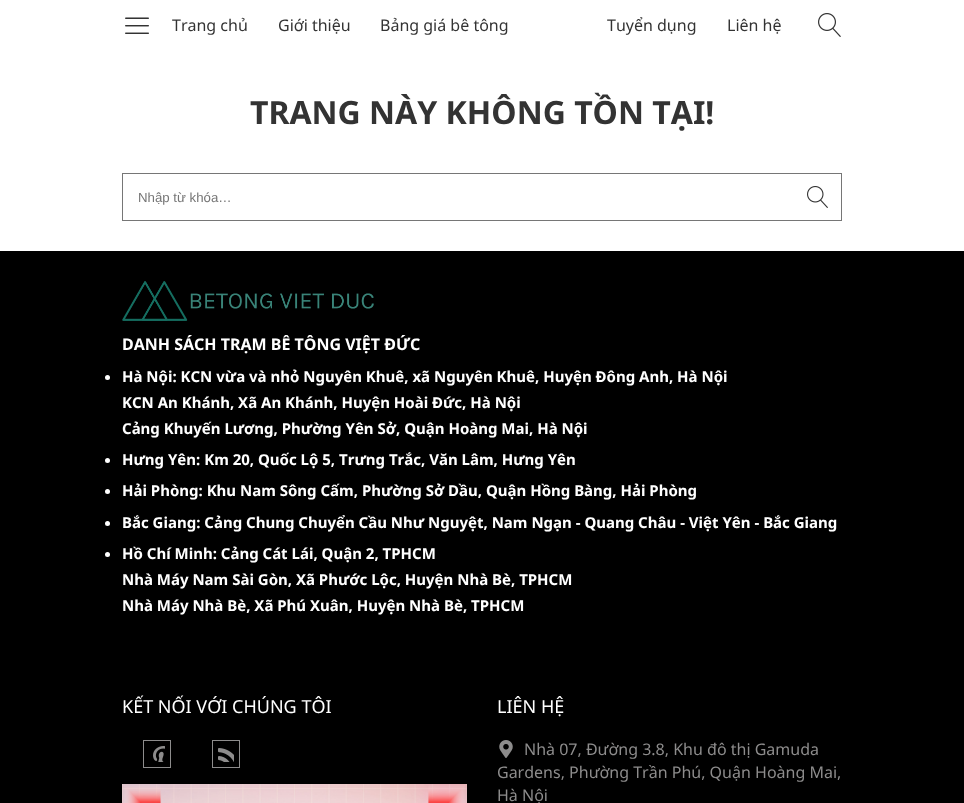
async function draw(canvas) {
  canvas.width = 964
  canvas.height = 803
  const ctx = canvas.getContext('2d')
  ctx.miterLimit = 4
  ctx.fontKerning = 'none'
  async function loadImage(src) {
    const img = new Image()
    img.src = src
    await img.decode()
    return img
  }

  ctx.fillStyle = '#fff'
  ctx.fillRect(0, 0, 964, 803)
  ctx.drawImage(await loadImage('image0.png'), 125, 17, 24, 17)
  ctx.font = '16px Noto Sans'
  ctx.fillStyle = '#333'
  ctx.fillText('Trang chủ', 172, 31)
  ctx.fillText('Giới thiệu', 278, 31)
  ctx.fillText('Bảng giá bê tông', 380, 31)
  ctx.fillText('Tuyển dụng', 607, 31)
  ctx.fillText('Liên hệ', 727, 31)
  ctx.drawImage(await loadImage('image1.png'), 818, 13, 23, 24)
  ctx.font = 'bold 32px Noto Sans'
  ctx.fillText('TRANG NÀY KHÔNG TỒN TẠI!', 250, 124)
  ctx.strokeStyle = '#767676'
  ctx.strokeRect(122.5, 173.5, 719, 47)
  ctx.font = '13.25px Liberation Sans'
  ctx.fillStyle = '#757575'
  ctx.fillText('Nhập từ khóa…', 138, 202)
  ctx.drawImage(await loadImage('image2.png'), 807, 186, 21, 22)
  ctx.fillStyle = '#000'
  ctx.fillRect(0, 251, 964, 552)
  ctx.drawImage(await loadImage('image3.png'), 122, 281, 252, 40)
  ctx.font = 'bold 16px Noto Sans'
  ctx.fillStyle = '#fff'
  ctx.fillText('DANH SÁCH TRẠM BÊ TÔNG VIỆT ĐỨC', 122, 350)
  ctx.beginPath()
  ctx.arc(107.5, 377.5, 2.5, 0, 2 * Math.PI)
  ctx.fill()
  ctx.font = 'bold 15px Noto Sans'
  ctx.fillText('Hà Nội: KCN vừa và nhỏ Nguyên Khuê, xã Nguyên Khuê, Huyện Đông Anh, Hà Nội', 122, 382)
  ctx.fillText('KCN An Khánh, Xã An Khánh, Huyện Hoài Đức, Hà Nội', 122, 408)
  ctx.fillText('Cảng Khuyến Lương, Phường Yên Sở, Quận Hoàng Mai, Hà Nội', 122, 434)
  ctx.beginPath()
  ctx.arc(107.5, 460.5, 2.5, 0, 2 * Math.PI)
  ctx.fill()
  ctx.fillText('Hưng Yên: Km 20, Quốc Lộ 5, Trưng Trắc, Văn Lâm, Hưng Yên', 122, 465)
  ctx.beginPath()
  ctx.arc(107.5, 491.5, 2.5, 0, 2 * Math.PI)
  ctx.fill()
  ctx.fillText('Hải Phòng: Khu Nam Sông Cấm, Phường Sở Dầu, Quận Hồng Bàng, Hải Phòng', 122, 496)
  ctx.beginPath()
  ctx.arc(107.5, 523.5, 2.5, 0, 2 * Math.PI)
  ctx.fill()
  ctx.fillText('Bắc Giang: Cảng Chung Chuyển Cầu Như Nguyệt, Nam Ngạn - Quang Châu - Việt Yên - Bắc Giang', 122, 528)
  ctx.beginPath()
  ctx.arc(107.5, 554.5, 2.5, 0, 2 * Math.PI)
  ctx.fill()
  ctx.fillText('Hồ Chí Minh: Cảng Cát Lái, Quận 2, TPHCM', 122, 559)
  ctx.fillText('Nhà Máy Nam Sài Gòn, Xã Phước Lộc, Huyện Nhà Bè, TPHCM', 122, 585)
  ctx.fillText('Nhà Máy Nhà Bè, Xã Phú Xuân, Huyện Nhà Bè, TPHCM', 122, 611)
  ctx.font = '18px Noto Sans'
  ctx.fillText('KẾT NỐI VỚI CHÚNG TÔI', 122, 713)
  ctx.strokeStyle = '#8d8c8c'
  ctx.strokeRect(143.5, 740.5, 27, 27)
  ctx.drawImage(await loadImage('image4.png'), 153, 746, 12, 16)
  ctx.strokeRect(212.5, 740.5, 27, 27)
  ctx.drawImage(await loadImage('image5.png'), 218, 748, 16, 14)
  ctx.drawImage(await loadImage('image6.png'), 122, 784, 345, 19)
  ctx.fillText('LIÊN HỆ', 497, 713)
  ctx.drawImage(await loadImage('image7.png'), 499, 740, 14, 18)
  ctx.font = '16px Noto Sans'
  ctx.fillStyle = '#8d8c8c'
  ctx.fillText('Nhà 07, Đường 3.8, Khu đô thị Gamuda', 524, 755)
  ctx.fillText('Gardens, Phường Trần Phú, Quận Hoàng Mai,', 497, 778)
  ctx.fillText('Hà Nội', 497, 801)
}

draw(document.querySelector('canvas'))
